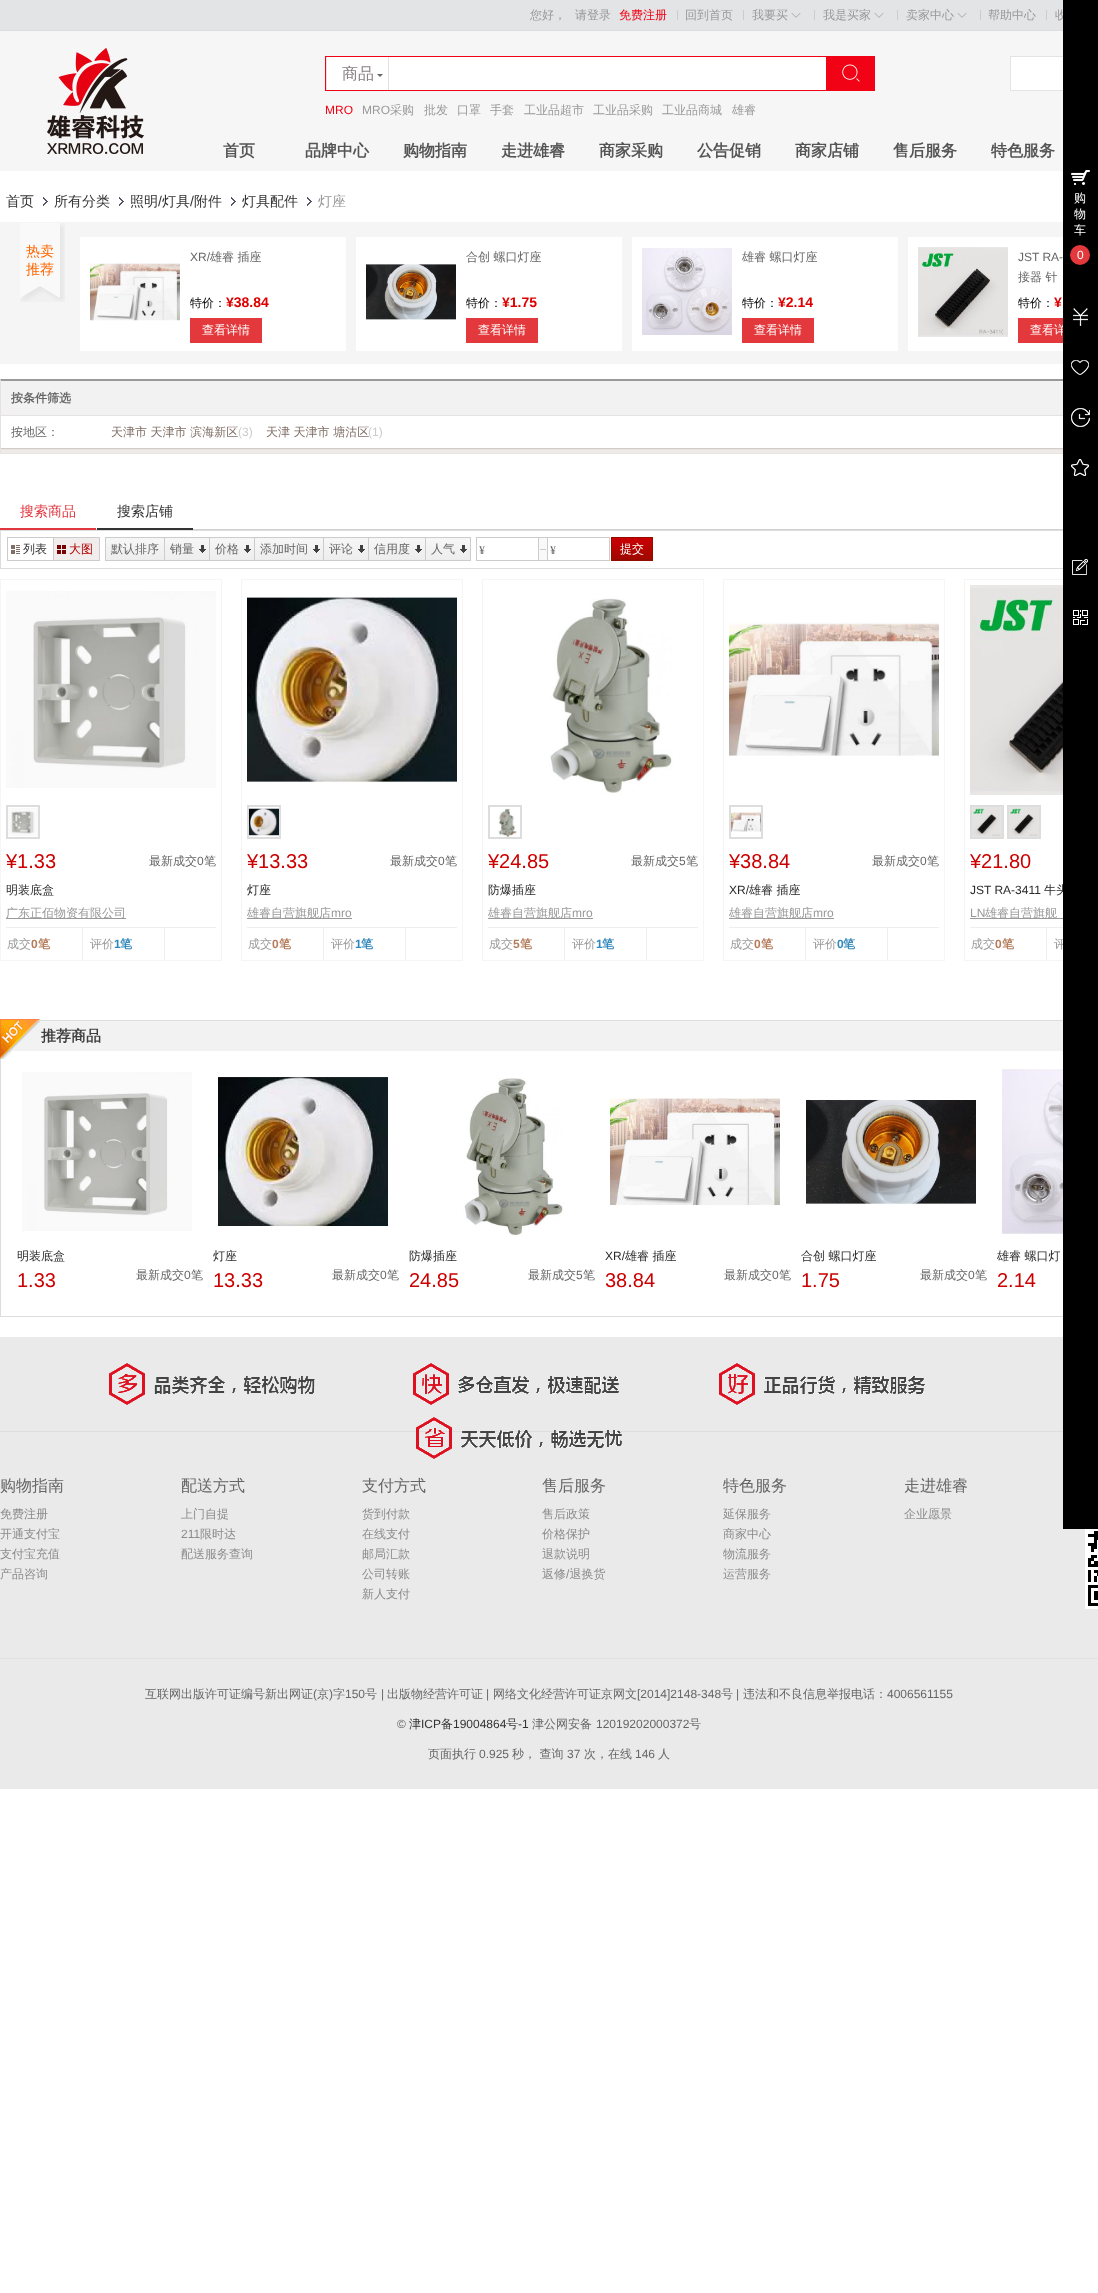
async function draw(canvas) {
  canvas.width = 1098
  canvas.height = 2293
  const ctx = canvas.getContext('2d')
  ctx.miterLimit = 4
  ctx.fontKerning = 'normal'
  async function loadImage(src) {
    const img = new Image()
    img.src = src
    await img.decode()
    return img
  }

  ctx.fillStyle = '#fff'
  ctx.fillRect(0, 0, 1098, 2293)
  ctx.fillStyle = '#e3e4e5'
  ctx.fillRect(0, 0, 1063, 30)
  ctx.fillStyle = '#ddd'
  ctx.fillRect(0, 30, 1063, 1)
  ctx.font = '500 12px WenQuanYi Zen Hei'
  ctx.fillStyle = '#999'
  ctx.fillText('您好，', 530, 19)
  ctx.fillText('请登录', 575, 19)
  ctx.fillStyle = '#f10215'
  ctx.fillText('免费注册', 619, 19)
  ctx.fillStyle = '#ccc'
  ctx.fillRect(677, 10, 1, 10)
  ctx.fillStyle = '#999'
  ctx.fillText('回到首页', 685, 19)
  ctx.fillStyle = '#ccc'
  ctx.fillRect(743, 10, 1, 10)
  ctx.fillStyle = '#999'
  ctx.fillText('我要买', 752, 19)
  ctx.beginPath()
  ctx.moveTo(791, 13)
  ctx.lineTo(801, 13)
  ctx.lineTo(796, 18)
  ctx.closePath()
  ctx.fill()
  ctx.fillStyle = '#e3e4e5'
  ctx.beginPath()
  ctx.moveTo(801, 13)
  ctx.lineTo(801, 23)
  ctx.lineTo(796, 18)
  ctx.closePath()
  ctx.moveTo(791, 23)
  ctx.lineTo(791, 13)
  ctx.lineTo(796, 18)
  ctx.closePath()
  ctx.fill()
  ctx.beginPath()
  ctx.moveTo(791, 12)
  ctx.lineTo(801, 12)
  ctx.lineTo(796, 17)
  ctx.closePath()
  ctx.fill()
  ctx.fillStyle = '#ccc'
  ctx.fillRect(814, 10, 1, 10)
  ctx.fillStyle = '#999'
  ctx.fillText('我是买家', 823, 19)
  ctx.beginPath()
  ctx.moveTo(874, 13)
  ctx.lineTo(884, 13)
  ctx.lineTo(879, 18)
  ctx.closePath()
  ctx.fill()
  ctx.fillStyle = '#e3e4e5'
  ctx.beginPath()
  ctx.moveTo(884, 13)
  ctx.lineTo(884, 23)
  ctx.lineTo(879, 18)
  ctx.closePath()
  ctx.moveTo(874, 23)
  ctx.lineTo(874, 13)
  ctx.lineTo(879, 18)
  ctx.closePath()
  ctx.fill()
  ctx.beginPath()
  ctx.moveTo(874, 12)
  ctx.lineTo(884, 12)
  ctx.lineTo(879, 17)
  ctx.closePath()
  ctx.fill()
  ctx.fillStyle = '#ccc'
  ctx.fillRect(897, 10, 1, 10)
  ctx.fillStyle = '#999'
  ctx.fillText('卖家中心', 906, 19)
  ctx.beginPath()
  ctx.moveTo(957, 13)
  ctx.lineTo(967, 13)
  ctx.lineTo(962, 18)
  ctx.closePath()
  ctx.fill()
  ctx.fillStyle = '#e3e4e5'
  ctx.beginPath()
  ctx.moveTo(967, 13)
  ctx.lineTo(967, 23)
  ctx.lineTo(962, 18)
  ctx.closePath()
  ctx.moveTo(957, 23)
  ctx.lineTo(957, 13)
  ctx.lineTo(962, 18)
  ctx.closePath()
  ctx.fill()
  ctx.beginPath()
  ctx.moveTo(957, 12)
  ctx.lineTo(967, 12)
  ctx.lineTo(962, 17)
  ctx.closePath()
  ctx.fill()
  ctx.fillStyle = '#ccc'
  ctx.fillRect(980, 10, 1, 10)
  ctx.fillStyle = '#999'
  ctx.fillText('帮助中心', 988, 19)
  ctx.fillStyle = '#ccc'
  ctx.fillRect(1046, 10, 1, 10)
  ctx.fillStyle = '#999'
  ctx.fillText('收', 1055, 19)
  ctx.fillStyle = '#f6f6f6'
  ctx.fillRect(190, 31, 873, 140)
  ctx.drawImage(await loadImage('image0.png'), 0, 31, 190, 140)
  ctx.strokeStyle = '#f10215'
  ctx.strokeRect(325.5, 56.5, 549, 34)
  ctx.fillStyle = '#fff'
  ctx.fillRect(327, 57, 499, 33)
  ctx.fillStyle = '#f10215'
  ctx.fillRect(826, 57, 48, 33)
  ctx.drawImage(await loadImage('image1.png'), 842, 64, 18, 18)
  ctx.fillStyle = '#e2e2e2'
  ctx.fillRect(388, 57, 1, 33)
  ctx.fillRect(326, 57, 1, 33)
  ctx.font = '500 16px WenQuanYi Zen Hei'
  ctx.fillStyle = '#898181'
  ctx.fillText('商品', 342, 79)
  ctx.fillStyle = '#666'
  ctx.beginPath()
  ctx.moveTo(377, 74)
  ctx.lineTo(383, 74)
  ctx.lineTo(380, 77)
  ctx.closePath()
  ctx.fill()
  ctx.font = '12px Liberation Sans'
  ctx.fillStyle = '#f10215'
  ctx.fillText('MRO', 325, 114)
  ctx.fillStyle = '#999'
  ctx.fillText('MRO', 362, 114)
  ctx.font = '500 12px WenQuanYi Zen Hei'
  ctx.fillText('采购', 390, 114)
  ctx.fillText('批发', 424, 114)
  ctx.fillText('口罩', 457, 114)
  ctx.fillText('手套', 490, 114)
  ctx.fillText('工业品超市', 524, 114)
  ctx.fillText('工业品采购', 593, 114)
  ctx.fillText('工业品商城', 662, 114)
  ctx.fillText('雄睿', 732, 114)
  ctx.fillStyle = '#fff'
  ctx.fillRect(1011, 57, 52, 33)
  ctx.strokeStyle = '#e3e4e5'
  ctx.strokeRect(1010.5, 56.5, 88, 34)
  ctx.font = 'bold 16px WenQuanYi Zen Hei'
  ctx.fillStyle = '#555'
  ctx.fillText('首页', 223, 156)
  ctx.fillText('品牌中心', 305, 156)
  ctx.fillText('购物指南', 403, 156)
  ctx.fillText('走进雄睿', 501, 156)
  ctx.fillText('商家采购', 599, 156)
  ctx.fillText('公告促销', 697, 156)
  ctx.fillText('商家店铺', 795, 156)
  ctx.fillText('售后服务', 893, 156)
  ctx.fillText('特色服务', 991, 156)
  ctx.fillStyle = '#eaeaea'
  ctx.fillRect(0, 1337, 1098, 452)
  ctx.fillStyle = '#f5f5f5'
  ctx.fillRect(0, 222, 1063, 142)
  ctx.fillStyle = '#fff'
  ctx.fillRect(908, 237, 155, 114)
  ctx.fillStyle = '#e4393c'
  ctx.fillRect(1018, 318, 45, 25)
  ctx.font = '500 12px WenQuanYi Zen Hei'
  ctx.fillStyle = '#fff'
  ctx.fillText('查看详', 1030, 334)
  ctx.fillStyle = '#999'
  ctx.beginPath()
  ctx.moveTo(0, 379)
  ctx.lineTo(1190, 379)
  ctx.lineTo(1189, 381)
  ctx.lineTo(1, 381)
  ctx.closePath()
  ctx.fill()
  ctx.fillStyle = '#efebea'
  ctx.fillRect(0, 450, 1063, 3)
  ctx.strokeStyle = '#ebe4de'
  ctx.strokeRect(0.5, 449.5, 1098, 4)
  ctx.strokeStyle = '#ddd'
  ctx.strokeRect(0.5, 530.5, 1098, 38)
  ctx.strokeStyle = '#f5f5f5'
  ctx.strokeRect(964.5, 579.5, 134, 381)
  ctx.fillStyle = '#2a2a2a'
  ctx.fillText('牛头', 1044, 894)
  ctx.fillStyle = '#999'
  ctx.fillRect(970, 918, 99, 1)
  ctx.fillText('评', 1054, 948)
  ctx.strokeStyle = '#ddd'
  ctx.strokeRect(0.5, 1020.5, 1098, 296)
  ctx.fillStyle = '#000'
  ctx.fillRect(1063, 0, 35, 1529)
  ctx.drawImage(await loadImage('image2.png'), 1071, 170, 19, 15)
  ctx.fillStyle = '#fff'
  ctx.fillText('购', 1074, 202)
  ctx.fillText('物', 1074, 218)
  ctx.fillText('车', 1074, 234)
  ctx.fillStyle = '#e4393c'
  ctx.beginPath()
  ctx.arc(1080, 255, 10, 0, 2 * Math.PI)
  ctx.fill()
  ctx.font = '12px Liberation Sans'
  ctx.fillStyle = '#fff'
  ctx.fillText('0', 1077, 259)
  ctx.drawImage(await loadImage('image3.png'), 1073, 308, 15, 18)
  ctx.drawImage(await loadImage('image4.png'), 1071, 360, 18, 15)
  ctx.drawImage(await loadImage('image5.png'), 1071, 408, 19, 19)
  ctx.drawImage(await loadImage('image6.png'), 1071, 459, 18, 17)
  ctx.drawImage(await loadImage('image7.png'), 1072, 559, 16, 16)
  ctx.drawImage(await loadImage('image8.png'), 1073, 610, 15, 15)
  ctx.fillStyle = '#dedede'
  ctx.fillRect(0, 1431, 1063, 1)
  ctx.drawImage(await loadImage('image9.png'), 109, 1363, 206, 42)
  ctx.drawImage(await loadImage('image10.png'), 413, 1363, 206, 42)
  ctx.drawImage(await loadImage('image11.png'), 719, 1363, 206, 42)
  ctx.drawImage(await loadImage('image12.png'), 416, 1417, 206, 42)
  ctx.font = '500 16px WenQuanYi Zen Hei'
  ctx.fillStyle = '#666'
  ctx.fillText('购物指南', 0, 1491)
  ctx.font = '500 12px WenQuanYi Zen Hei'
  ctx.fillStyle = '#8b8b8b'
  ctx.fillText('免费注册', 0, 1518)
  ctx.fillText('开通支付宝', 0, 1538)
  ctx.fillText('支付宝充值', 0, 1558)
  ctx.fillText('产品咨询', 0, 1578)
  ctx.font = '500 16px WenQuanYi Zen Hei'
  ctx.fillStyle = '#666'
  ctx.fillText('配送方式', 181, 1491)
  ctx.font = '500 12px WenQuanYi Zen Hei'
  ctx.fillStyle = '#8b8b8b'
  ctx.fillText('上门自提', 181, 1518)
  ctx.font = '12px Liberation Sans'
  ctx.fillText('211', 181, 1538)
  ctx.font = '500 12px WenQuanYi Zen Hei'
  ctx.fillText('限时达', 200, 1538)
  ctx.fillText('配送服务查询', 181, 1558)
  ctx.font = '500 16px WenQuanYi Zen Hei'
  ctx.fillStyle = '#666'
  ctx.fillText('支付方式', 362, 1491)
  ctx.font = '500 12px WenQuanYi Zen Hei'
  ctx.fillStyle = '#8b8b8b'
  ctx.fillText('货到付款', 362, 1518)
  ctx.fillText('在线支付', 362, 1538)
  ctx.fillText('邮局汇款', 362, 1558)
  ctx.fillText('公司转账', 362, 1578)
  ctx.fillText('新人支付', 362, 1598)
  ctx.font = '500 16px WenQuanYi Zen Hei'
  ctx.fillStyle = '#666'
  ctx.fillText('售后服务', 542, 1491)
  ctx.font = '500 12px WenQuanYi Zen Hei'
  ctx.fillStyle = '#8b8b8b'
  ctx.fillText('售后政策', 542, 1518)
  ctx.fillText('价格保护', 542, 1538)
  ctx.fillText('退款说明', 542, 1558)
  ctx.fillText('返修 退换货', 542, 1578)
  ctx.font = '12px Liberation Sans'
  ctx.fillText('/', 566, 1578)
  ctx.font = '500 16px WenQuanYi Zen Hei'
  ctx.fillStyle = '#666'
  ctx.fillText('特色服务', 723, 1491)
  ctx.font = '500 12px WenQuanYi Zen Hei'
  ctx.fillStyle = '#8b8b8b'
  ctx.fillText('延保服务', 723, 1518)
  ctx.fillText('商家中心', 723, 1538)
  ctx.fillText('物流服务', 723, 1558)
  ctx.fillText('运营服务', 723, 1578)
  ctx.font = '500 16px WenQuanYi Zen Hei'
  ctx.fillStyle = '#666'
  ctx.fillText('走进雄睿', 904, 1491)
  ctx.font = '500 12px WenQuanYi Zen Hei'
  ctx.fillStyle = '#8b8b8b'
  ctx.fillText('企业愿景', 904, 1518)
  ctx.drawImage(await loadImage('image13.png'), 1085, 1529, 13, 80)
  ctx.fillStyle = '#e1e1e1'
  ctx.fillRect(0, 1658, 1098, 1)
  ctx.fillStyle = '#666'
  ctx.fillText('互联网出版许可证编号新出网证', 145, 1698)
  ctx.font = '12px Liberation Sans'
  ctx.fillText('(', 313, 1698)
  ctx.font = '500 12px WenQuanYi Zen Hei'
  ctx.fillText('京', 317, 1698)
  ctx.font = '12px Liberation Sans'
  ctx.fillText(')', 329, 1698)
  ctx.font = '500 12px WenQuanYi Zen Hei'
  ctx.fillText('字', 333, 1698)
  ctx.font = '12px Liberation Sans'
  ctx.fillText('150', 345, 1698)
  ctx.font = '500 12px WenQuanYi Zen Hei'
  ctx.fillText('号', 365, 1698)
  ctx.font = '12px Liberation Sans'
  ctx.fillText('|', 381, 1698)
  ctx.font = '500 12px WenQuanYi Zen Hei'
  ctx.fillText('出版物经营许可证', 387, 1698)
  ctx.font = '12px Liberation Sans'
  ctx.fillText('|', 486, 1698)
  ctx.font = '500 12px WenQuanYi Zen Hei'
  ctx.fillText('网络文化经营许可证京网文', 493, 1698)
  ctx.font = '12px Liberation Sans'
  ctx.fillText('[2014]2148-348', 637, 1698)
  ctx.font = '500 12px WenQuanYi Zen Hei'
  ctx.fillText('号', 721, 1698)
  ctx.font = '12px Liberation Sans'
  ctx.fillText('|', 736, 1698)
  ctx.font = '500 12px WenQuanYi Zen Hei'
  ctx.fillText('违法和不良信息举报电话：', 743, 1698)
  ctx.font = '12px Liberation Sans'
  ctx.fillText('4006561155', 887, 1698)
  ctx.fillText('©', 397, 1728)
  ctx.font = '500 12px WenQuanYi Zen Hei'
  ctx.fillStyle = '#333'
  ctx.fillText('津', 409, 1728)
  ctx.font = '12px Liberation Sans'
  ctx.fillText('ICP', 421, 1728)
  ctx.font = '500 12px WenQuanYi Zen Hei'
  ctx.fillText('备', 441, 1728)
  ctx.font = '12px Liberation Sans'
  ctx.fillText('19004864', 453, 1728)
  ctx.font = '500 12px WenQuanYi Zen Hei'
  ctx.fillText('号', 506, 1728)
  ctx.font = '12px Liberation Sans'
  ctx.fillText('-1', 518, 1728)
  ctx.font = '500 12px WenQuanYi Zen Hei'
  ctx.fillStyle = '#666'
  ctx.fillText('津公网安备', 532, 1728)
  ctx.font = '12px Liberation Sans'
  ctx.fillText('12019202000372', 596, 1728)
  ctx.font = '500 12px WenQuanYi Zen Hei'
  ctx.fillText('号', 689, 1728)
  ctx.fillText('页面执行', 428, 1758)
  ctx.font = '12px Liberation Sans'
  ctx.fillText('0.925', 479, 1758)
  ctx.font = '500 12px WenQuanYi Zen Hei'
  ctx.fillText('秒， 查询', 512, 1758)
  ctx.font = '12px Liberation Sans'
  ctx.fillText('37', 567, 1758)
  ctx.font = '500 12px WenQuanYi Zen Hei'
  ctx.fillText('次，在线', 584, 1758)
  ctx.font = '12px Liberation Sans'
  ctx.fillText('146', 635, 1758)
  ctx.font = '500 12px WenQuanYi Zen Hei'
  ctx.fillText('人', 658, 1758)
  ctx.font = '500 14px WenQuanYi Zen Hei'
  ctx.fillStyle = '#333'
  ctx.fillText('首页', 6, 206)
  ctx.drawImage(await loadImage('image14.png'), 43, 197, 5, 9)
  ctx.fillText('所有分类', 54, 206)
  ctx.drawImage(await loadImage('image14.png'), 119, 197, 5, 9)
  ctx.fillText('照明', 130, 206)
  ctx.font = '14px Liberation Sans'
  ctx.fillText('/', 158, 206)
  ctx.font = '500 14px WenQuanYi Zen Hei'
  ctx.fillText('灯具', 162, 206)
  ctx.font = '14px Liberation Sans'
  ctx.fillText('/', 190, 206)
  ctx.font = '500 14px WenQuanYi Zen Hei'
  ctx.fillText('附件', 194, 206)
  ctx.drawImage(await loadImage('image14.png'), 231, 197, 5, 9)
  ctx.fillText('灯具配件', 242, 206)
  ctx.drawImage(await loadImage('image14.png'), 307, 197, 5, 9)
  ctx.fillStyle = '#999'
  ctx.fillText('灯座', 318, 206)
  ctx.drawImage(await loadImage('image15.png'), 20, 223, 45, 79)
  ctx.fillStyle = '#f60'
  ctx.fillText('热卖', 26, 256)
  ctx.fillText('推荐', 26, 274)
  ctx.fillStyle = '#fff'
  ctx.fillRect(80, 237, 266, 114)
  ctx.drawImage(await loadImage('image16.png'), 90, 263, 90, 58)
  ctx.font = '12px Liberation Sans'
  ctx.fillStyle = '#666'
  ctx.fillText('XR/', 190, 261)
  ctx.font = '500 12px WenQuanYi Zen Hei'
  ctx.fillText('雄睿 插座', 210, 261)
  ctx.fillStyle = '#000'
  ctx.fillText('特价：', 190, 307)
  ctx.font = 'bold 14px Liberation Sans'
  ctx.fillStyle = '#d00'
  ctx.fillText('¥38.84', 226, 307)
  ctx.fillStyle = '#e4393c'
  ctx.fillRect(190, 318, 72, 25)
  ctx.font = '500 12px WenQuanYi Zen Hei'
  ctx.fillStyle = '#fff'
  ctx.fillText('查看详情', 202, 334)
  ctx.fillRect(356, 237, 266, 114)
  ctx.drawImage(await loadImage('image17.png'), 366, 264, 90, 56)
  ctx.fillStyle = '#666'
  ctx.fillText('合创 螺口灯座', 466, 261)
  ctx.fillStyle = '#000'
  ctx.fillText('特价：', 466, 307)
  ctx.font = 'bold 14px Liberation Sans'
  ctx.fillStyle = '#d00'
  ctx.fillText('¥1.75', 502, 307)
  ctx.fillStyle = '#e4393c'
  ctx.fillRect(466, 318, 72, 25)
  ctx.font = '500 12px WenQuanYi Zen Hei'
  ctx.fillStyle = '#fff'
  ctx.fillText('查看详情', 478, 334)
  ctx.fillRect(632, 237, 266, 114)
  ctx.drawImage(await loadImage('image18.png'), 642, 248, 90, 87)
  ctx.fillStyle = '#666'
  ctx.fillText('雄睿 螺口灯座', 742, 261)
  ctx.fillStyle = '#000'
  ctx.fillText('特价：', 742, 307)
  ctx.font = 'bold 14px Liberation Sans'
  ctx.fillStyle = '#d00'
  ctx.fillText('¥2.14', 778, 307)
  ctx.fillStyle = '#e4393c'
  ctx.fillRect(742, 318, 72, 25)
  ctx.font = '500 12px WenQuanYi Zen Hei'
  ctx.fillStyle = '#fff'
  ctx.fillText('查看详情', 754, 334)
  ctx.drawImage(await loadImage('image19.png'), 918, 247, 90, 90)
  ctx.font = '12px Liberation Sans'
  ctx.fillStyle = '#666'
  ctx.fillText('JST RA-', 1018, 261)
  ctx.font = '500 12px WenQuanYi Zen Hei'
  ctx.fillText('接器 针', 1018, 281)
  ctx.fillStyle = '#000'
  ctx.fillText('特价：', 1018, 307)
  ctx.font = 'bold 14px Liberation Sans'
  ctx.fillStyle = '#d00'
  ctx.fillText('¥', 1054, 307)
  ctx.fillStyle = '#f2f2f2'
  ctx.fillRect(1, 381, 1062, 34)
  ctx.fillStyle = '#e6e2e1'
  ctx.fillRect(0, 415, 1063, 1)
  ctx.beginPath()
  ctx.moveTo(0, 416)
  ctx.lineTo(0, 379)
  ctx.lineTo(1, 381)
  ctx.lineTo(1, 415)
  ctx.closePath()
  ctx.fill()
  ctx.font = 'bold 12px WenQuanYi Zen Hei'
  ctx.fillStyle = '#666'
  ctx.fillText('按条件筛选', 11, 402)
  ctx.fillStyle = '#d1ccc7'
  ctx.fillRect(0, 448, 1063, 1)
  ctx.fillStyle = '#e6e2e1'
  ctx.fillRect(0, 416, 1, 33)
  ctx.font = '500 12px WenQuanYi Zen Hei'
  ctx.fillStyle = '#666'
  ctx.fillText('按地区：', 11, 436)
  ctx.fillStyle = '#806f66'
  ctx.fillText('天津市 天津市 滨海新区', 111, 436)
  ctx.font = '12px Liberation Sans'
  ctx.fillStyle = '#ccc'
  ctx.fillText('(3)', 238, 436)
  ctx.font = '500 12px WenQuanYi Zen Hei'
  ctx.fillStyle = '#806f66'
  ctx.fillText('天津 天津市 塘沽区', 266, 436)
  ctx.font = '12px Liberation Sans'
  ctx.fillStyle = '#ccc'
  ctx.fillText('(1)', 368, 436)
  ctx.fillStyle = '#d2d2d2'
  ctx.fillRect(96, 529, 967, 1)
  ctx.fillStyle = '#e1363f'
  ctx.fillRect(0, 528, 96, 2)
  ctx.font = '500 14px WenQuanYi Zen Hei'
  ctx.fillText('搜索商品', 20, 516)
  ctx.fillStyle = '#333'
  ctx.fillRect(97, 528, 96, 2)
  ctx.fillText('搜索店铺', 117, 516)
  ctx.strokeStyle = '#ccc'
  ctx.strokeRect(7.5, 537.5, 46, 23)
  ctx.drawImage(await loadImage('image20.png'), 11, 545, 9, 9)
  ctx.font = '500 12px WenQuanYi Zen Hei'
  ctx.fillText('列表', 23, 553)
  ctx.fillStyle = '#f1edec'
  ctx.fillRect(54, 538, 45, 22)
  ctx.fillStyle = '#ccc'
  ctx.fillRect(54, 537, 46, 1)
  ctx.fillRect(99, 537, 1, 24)
  ctx.fillRect(54, 560, 46, 1)
  ctx.drawImage(await loadImage('image21.png'), 57, 545, 9, 9)
  ctx.fillStyle = '#b10000'
  ctx.fillText('大图', 69, 553)
  ctx.drawImage(await loadImage('image22.png'), 106, 538, 58, 22)
  ctx.strokeRect(105.5, 537.5, 59, 23)
  ctx.fillStyle = '#666'
  ctx.fillText('默认排序', 111, 553)
  ctx.drawImage(await loadImage('image23.png'), 165, 538, 44, 22)
  ctx.fillStyle = '#ccc'
  ctx.fillRect(165, 537, 306, 1)
  ctx.fillRect(209, 537, 1, 24)
  ctx.fillRect(165, 560, 45, 1)
  ctx.fillStyle = '#666'
  ctx.fillText('销量', 170, 553)
  ctx.drawImage(await loadImage('image24.png'), 199, 545, 7, 8)
  ctx.drawImage(await loadImage('image23.png'), 210, 538, 44, 22)
  ctx.fillStyle = '#ccc'
  ctx.fillRect(254, 537, 1, 24)
  ctx.fillRect(210, 560, 45, 1)
  ctx.fillStyle = '#666'
  ctx.fillText('价格', 215, 553)
  ctx.drawImage(await loadImage('image24.png'), 244, 545, 7, 8)
  ctx.drawImage(await loadImage('image25.png'), 255, 538, 68, 22)
  ctx.fillStyle = '#ccc'
  ctx.fillRect(323, 537, 1, 24)
  ctx.fillRect(255, 560, 69, 1)
  ctx.fillStyle = '#666'
  ctx.fillText('添加时间', 260, 553)
  ctx.drawImage(await loadImage('image24.png'), 313, 545, 7, 8)
  ctx.drawImage(await loadImage('image23.png'), 324, 538, 44, 22)
  ctx.fillStyle = '#ccc'
  ctx.fillRect(368, 537, 1, 24)
  ctx.fillRect(324, 560, 45, 1)
  ctx.fillStyle = '#666'
  ctx.fillText('评论', 329, 553)
  ctx.drawImage(await loadImage('image24.png'), 358, 545, 7, 8)
  ctx.drawImage(await loadImage('image26.png'), 369, 538, 56, 22)
  ctx.fillStyle = '#ccc'
  ctx.fillRect(425, 537, 1, 24)
  ctx.fillRect(369, 560, 57, 1)
  ctx.fillStyle = '#666'
  ctx.fillText('信用度', 374, 553)
  ctx.drawImage(await loadImage('image24.png'), 415, 545, 7, 8)
  ctx.drawImage(await loadImage('image23.png'), 426, 538, 44, 22)
  ctx.fillStyle = '#ccc'
  ctx.fillRect(470, 537, 1, 24)
  ctx.fillRect(426, 560, 45, 1)
  ctx.fillStyle = '#666'
  ctx.fillText('人气', 431, 553)
  ctx.drawImage(await loadImage('image24.png'), 460, 545, 7, 8)
  ctx.strokeRect(476.5, 537.5, 62, 23)
  ctx.font = '12px Liberation Serif'
  ctx.fillText('¥', 479, 554)
  ctx.drawImage(await loadImage('image27.png'), 539, 537, 8, 24)
  ctx.strokeRect(547.5, 537.5, 62, 23)
  ctx.fillText('¥', 550, 554)
  ctx.drawImage(await loadImage('image28.png'), 612, 537, 40, 24)
  ctx.fillStyle = '#950b00'
  ctx.fillRect(652, 537, 1, 24)
  ctx.fillRect(611, 537, 1, 24)
  ctx.font = '500 12px WenQuanYi Zen Hei'
  ctx.fillStyle = '#fff'
  ctx.fillText('提交', 620, 553)
  ctx.strokeStyle = '#f5f5f5'
  ctx.strokeRect(0.5, 579.5, 221, 381)
  ctx.drawImage(await loadImage('image29.png'), 6, 591, 210, 197)
  ctx.drawImage(await loadImage('image30.png'), 8, 808, 30, 28)
  ctx.strokeStyle = '#ddd'
  ctx.lineWidth = 2
  ctx.strokeRect(7, 806, 32, 32)
  ctx.font = '20px Liberation Sans'
  ctx.fillStyle = '#c00'
  ctx.fillText('¥1.33', 6, 868)
  ctx.font = '500 12px WenQuanYi Zen Hei'
  ctx.fillStyle = '#666'
  ctx.fillText('最新成交', 149, 865)
  ctx.font = '12px Liberation Sans'
  ctx.fillText('0', 197, 865)
  ctx.font = '500 12px WenQuanYi Zen Hei'
  ctx.fillText('笔', 204, 865)
  ctx.fillStyle = '#2a2a2a'
  ctx.fillText('明装底盒', 6, 894)
  ctx.fillStyle = '#999'
  ctx.fillRect(6, 918, 120, 1)
  ctx.fillText('广东正佰物资有限公司', 6, 917)
  ctx.fillStyle = '#eee'
  ctx.fillRect(6, 927, 210, 1)
  ctx.fillRect(82, 928, 1, 32)
  ctx.fillStyle = '#999'
  ctx.fillText('成交', 7, 948)
  ctx.font = 'bold 12px Liberation Sans'
  ctx.fillStyle = '#b57c5b'
  ctx.fillText('0', 31, 948)
  ctx.font = 'bold 12px WenQuanYi Zen Hei'
  ctx.fillText('笔', 38, 948)
  ctx.fillStyle = '#eee'
  ctx.fillRect(164, 928, 1, 32)
  ctx.font = '500 12px WenQuanYi Zen Hei'
  ctx.fillStyle = '#999'
  ctx.fillText('评价', 90, 948)
  ctx.font = 'bold 12px Liberation Sans'
  ctx.fillStyle = '#38b'
  ctx.fillText('1', 114, 948)
  ctx.font = 'bold 12px WenQuanYi Zen Hei'
  ctx.fillText('笔', 120, 948)
  ctx.strokeStyle = '#f5f5f5'
  ctx.lineWidth = 1
  ctx.strokeRect(241.5, 579.5, 221, 381)
  ctx.drawImage(await loadImage('image31.png'), 247, 597, 210, 186)
  ctx.drawImage(await loadImage('image32.png'), 249, 808, 30, 28)
  ctx.strokeStyle = '#ddd'
  ctx.lineWidth = 2
  ctx.strokeRect(248, 806, 32, 32)
  ctx.font = '20px Liberation Sans'
  ctx.fillStyle = '#c00'
  ctx.fillText('¥13.33', 247, 868)
  ctx.font = '500 12px WenQuanYi Zen Hei'
  ctx.fillStyle = '#666'
  ctx.fillText('最新成交', 390, 865)
  ctx.font = '12px Liberation Sans'
  ctx.fillText('0', 438, 865)
  ctx.font = '500 12px WenQuanYi Zen Hei'
  ctx.fillText('笔', 445, 865)
  ctx.fillStyle = '#2a2a2a'
  ctx.fillText('灯座', 247, 894)
  ctx.fillStyle = '#999'
  ctx.fillRect(247, 918, 105, 1)
  ctx.fillText('雄睿自营旗舰店', 247, 917)
  ctx.font = '12px Liberation Sans'
  ctx.fillText('mro', 331, 917)
  ctx.fillStyle = '#eee'
  ctx.fillRect(247, 927, 210, 1)
  ctx.fillRect(323, 928, 1, 32)
  ctx.font = '500 12px WenQuanYi Zen Hei'
  ctx.fillStyle = '#999'
  ctx.fillText('成交', 248, 948)
  ctx.font = 'bold 12px Liberation Sans'
  ctx.fillStyle = '#b57c5b'
  ctx.fillText('0', 272, 948)
  ctx.font = 'bold 12px WenQuanYi Zen Hei'
  ctx.fillText('笔', 279, 948)
  ctx.fillStyle = '#eee'
  ctx.fillRect(405, 928, 1, 32)
  ctx.font = '500 12px WenQuanYi Zen Hei'
  ctx.fillStyle = '#999'
  ctx.fillText('评价', 331, 948)
  ctx.font = 'bold 12px Liberation Sans'
  ctx.fillStyle = '#38b'
  ctx.fillText('1', 355, 948)
  ctx.font = 'bold 12px WenQuanYi Zen Hei'
  ctx.fillText('笔', 361, 948)
  ctx.strokeStyle = '#f5f5f5'
  ctx.lineWidth = 1
  ctx.strokeRect(482.5, 579.5, 221, 381)
  ctx.drawImage(await loadImage('image33.png'), 549, 598, 124, 196)
  ctx.drawImage(await loadImage('image34.png'), 498, 808, 19, 29)
  ctx.strokeStyle = '#ddd'
  ctx.lineWidth = 2
  ctx.strokeRect(489, 806, 32, 32)
  ctx.font = '20px Liberation Sans'
  ctx.fillStyle = '#c00'
  ctx.fillText('¥24.85', 488, 868)
  ctx.font = '500 12px WenQuanYi Zen Hei'
  ctx.fillStyle = '#666'
  ctx.fillText('最新成交', 631, 865)
  ctx.font = '12px Liberation Sans'
  ctx.fillText('5', 679, 865)
  ctx.font = '500 12px WenQuanYi Zen Hei'
  ctx.fillText('笔', 686, 865)
  ctx.fillStyle = '#2a2a2a'
  ctx.fillText('防爆插座', 488, 894)
  ctx.fillStyle = '#999'
  ctx.fillRect(488, 918, 105, 1)
  ctx.fillText('雄睿自营旗舰店', 488, 917)
  ctx.font = '12px Liberation Sans'
  ctx.fillText('mro', 572, 917)
  ctx.fillStyle = '#eee'
  ctx.fillRect(488, 927, 210, 1)
  ctx.fillRect(564, 928, 1, 32)
  ctx.font = '500 12px WenQuanYi Zen Hei'
  ctx.fillStyle = '#999'
  ctx.fillText('成交', 489, 948)
  ctx.font = 'bold 12px Liberation Sans'
  ctx.fillStyle = '#b57c5b'
  ctx.fillText('5', 513, 948)
  ctx.font = 'bold 12px WenQuanYi Zen Hei'
  ctx.fillText('笔', 520, 948)
  ctx.fillStyle = '#eee'
  ctx.fillRect(646, 928, 1, 32)
  ctx.font = '500 12px WenQuanYi Zen Hei'
  ctx.fillStyle = '#999'
  ctx.fillText('评价', 572, 948)
  ctx.font = 'bold 12px Liberation Sans'
  ctx.fillStyle = '#38b'
  ctx.fillText('1', 596, 948)
  ctx.font = 'bold 12px WenQuanYi Zen Hei'
  ctx.fillText('笔', 602, 948)
  ctx.strokeStyle = '#f5f5f5'
  ctx.lineWidth = 1
  ctx.strokeRect(723.5, 579.5, 221, 381)
  ctx.drawImage(await loadImage('image35.png'), 729, 622, 210, 134)
  ctx.drawImage(await loadImage('image36.png'), 731, 812, 30, 20)
  ctx.strokeStyle = '#ddd'
  ctx.lineWidth = 2
  ctx.strokeRect(730, 806, 32, 32)
  ctx.font = '20px Liberation Sans'
  ctx.fillStyle = '#c00'
  ctx.fillText('¥38.84', 729, 868)
  ctx.font = '500 12px WenQuanYi Zen Hei'
  ctx.fillStyle = '#666'
  ctx.fillText('最新成交', 872, 865)
  ctx.font = '12px Liberation Sans'
  ctx.fillText('0', 920, 865)
  ctx.font = '500 12px WenQuanYi Zen Hei'
  ctx.fillText('笔', 927, 865)
  ctx.font = '12px Liberation Sans'
  ctx.fillStyle = '#2a2a2a'
  ctx.fillText('XR/', 729, 894)
  ctx.font = '500 12px WenQuanYi Zen Hei'
  ctx.fillText('雄睿 插座', 749, 894)
  ctx.fillStyle = '#999'
  ctx.fillRect(729, 918, 105, 1)
  ctx.fillText('雄睿自营旗舰店', 729, 917)
  ctx.font = '12px Liberation Sans'
  ctx.fillText('mro', 813, 917)
  ctx.fillStyle = '#eee'
  ctx.fillRect(729, 927, 210, 1)
  ctx.fillRect(805, 928, 1, 32)
  ctx.font = '500 12px WenQuanYi Zen Hei'
  ctx.fillStyle = '#999'
  ctx.fillText('成交', 730, 948)
  ctx.font = 'bold 12px Liberation Sans'
  ctx.fillStyle = '#b57c5b'
  ctx.fillText('0', 754, 948)
  ctx.font = 'bold 12px WenQuanYi Zen Hei'
  ctx.fillText('笔', 761, 948)
  ctx.fillStyle = '#eee'
  ctx.fillRect(887, 928, 1, 32)
  ctx.font = '500 12px WenQuanYi Zen Hei'
  ctx.fillStyle = '#999'
  ctx.fillText('评价', 813, 948)
  ctx.font = 'bold 12px Liberation Sans'
  ctx.fillStyle = '#38b'
  ctx.fillText('0', 837, 948)
  ctx.font = 'bold 12px WenQuanYi Zen Hei'
  ctx.fillText('笔', 843, 948)
  ctx.drawImage(await loadImage('image37.png'), 970, 585, 93, 210)
  ctx.drawImage(await loadImage('image38.png'), 972, 807, 30, 30)
  ctx.strokeRect(971, 806, 32, 32)
  ctx.drawImage(await loadImage('image38.png'), 1009, 807, 30, 30)
  ctx.strokeRect(1008, 806, 32, 32)
  ctx.font = '20px Liberation Sans'
  ctx.fillStyle = '#c00'
  ctx.fillText('¥21.80', 970, 868)
  ctx.font = '12px Liberation Sans'
  ctx.fillStyle = '#2a2a2a'
  ctx.fillText('JST RA-3411', 970, 894)
  ctx.fillStyle = '#999'
  ctx.fillText('LN', 970, 917)
  ctx.font = '500 12px WenQuanYi Zen Hei'
  ctx.fillText('雄睿自营旗舰', 985, 917)
  ctx.fillStyle = '#eee'
  ctx.fillRect(970, 927, 93, 1)
  ctx.fillRect(1046, 928, 1, 32)
  ctx.fillStyle = '#999'
  ctx.fillText('成交', 971, 948)
  ctx.font = 'bold 12px Liberation Sans'
  ctx.fillStyle = '#b57c5b'
  ctx.fillText('0', 995, 948)
  ctx.font = 'bold 12px WenQuanYi Zen Hei'
  ctx.fillText('笔', 1002, 948)
  ctx.fillStyle = '#f2f2f2'
  ctx.fillRect(13, 1021, 1050, 30)
  ctx.drawImage(await loadImage('image39.png'), 0, 1019, 40, 40)
  ctx.font = 'bold 15px WenQuanYi Zen Hei'
  ctx.fillStyle = '#3e3e3e'
  ctx.fillText('推荐商品', 41, 1041)
  ctx.drawImage(await loadImage('image40.png'), 22, 1072, 170, 159)
  ctx.font = '500 12px WenQuanYi Zen Hei'
  ctx.fillStyle = '#2a2a2a'
  ctx.fillText('明装底盒', 17, 1260)
  ctx.font = '20px Liberation Sans'
  ctx.fillStyle = '#c00'
  ctx.fillText('1.33', 17, 1287)
  ctx.font = '500 12px WenQuanYi Zen Hei'
  ctx.fillStyle = '#666'
  ctx.fillText('最新成交', 136, 1279)
  ctx.font = '12px Liberation Sans'
  ctx.fillText('0', 184, 1279)
  ctx.font = '500 12px WenQuanYi Zen Hei'
  ctx.fillText('笔', 191, 1279)
  ctx.drawImage(await loadImage('image41.png'), 218, 1077, 170, 150)
  ctx.fillStyle = '#2a2a2a'
  ctx.fillText('灯座', 213, 1260)
  ctx.font = '20px Liberation Sans'
  ctx.fillStyle = '#c00'
  ctx.fillText('13.33', 213, 1287)
  ctx.font = '500 12px WenQuanYi Zen Hei'
  ctx.fillStyle = '#666'
  ctx.fillText('最新成交', 332, 1279)
  ctx.font = '12px Liberation Sans'
  ctx.fillText('0', 380, 1279)
  ctx.font = '500 12px WenQuanYi Zen Hei'
  ctx.fillText('笔', 387, 1279)
  ctx.drawImage(await loadImage('image42.png'), 463, 1078, 101, 158)
  ctx.fillStyle = '#2a2a2a'
  ctx.fillText('防爆插座', 409, 1260)
  ctx.font = '20px Liberation Sans'
  ctx.fillStyle = '#c00'
  ctx.fillText('24.85', 409, 1287)
  ctx.font = '500 12px WenQuanYi Zen Hei'
  ctx.fillStyle = '#666'
  ctx.fillText('最新成交', 528, 1279)
  ctx.font = '12px Liberation Sans'
  ctx.fillText('5', 576, 1279)
  ctx.font = '500 12px WenQuanYi Zen Hei'
  ctx.fillText('笔', 583, 1279)
  ctx.drawImage(await loadImage('image43.png'), 610, 1098, 170, 108)
  ctx.font = '12px Liberation Sans'
  ctx.fillStyle = '#2a2a2a'
  ctx.fillText('XR/', 605, 1260)
  ctx.font = '500 12px WenQuanYi Zen Hei'
  ctx.fillText('雄睿 插座', 625, 1260)
  ctx.font = '20px Liberation Sans'
  ctx.fillStyle = '#c00'
  ctx.fillText('38.84', 605, 1287)
  ctx.font = '500 12px WenQuanYi Zen Hei'
  ctx.fillStyle = '#666'
  ctx.fillText('最新成交', 724, 1279)
  ctx.font = '12px Liberation Sans'
  ctx.fillText('0', 772, 1279)
  ctx.font = '500 12px WenQuanYi Zen Hei'
  ctx.fillText('笔', 779, 1279)
  ctx.drawImage(await loadImage('image44.png'), 806, 1099, 170, 106)
  ctx.fillStyle = '#2a2a2a'
  ctx.fillText('合创 螺口灯座', 801, 1260)
  ctx.font = '20px Liberation Sans'
  ctx.fillStyle = '#c00'
  ctx.fillText('1.75', 801, 1287)
  ctx.font = '500 12px WenQuanYi Zen Hei'
  ctx.fillStyle = '#666'
  ctx.fillText('最新成交', 920, 1279)
  ctx.font = '12px Liberation Sans'
  ctx.fillText('0', 968, 1279)
  ctx.font = '500 12px WenQuanYi Zen Hei'
  ctx.fillText('笔', 975, 1279)
  ctx.drawImage(await loadImage('image45.png'), 1002, 1069, 61, 165)
  ctx.fillStyle = '#2a2a2a'
  ctx.fillText('雄睿 螺口灯', 997, 1260)
  ctx.font = '20px Liberation Sans'
  ctx.fillStyle = '#c00'
  ctx.fillText('2.14', 997, 1287)
}

draw(document.querySelector('canvas'))
